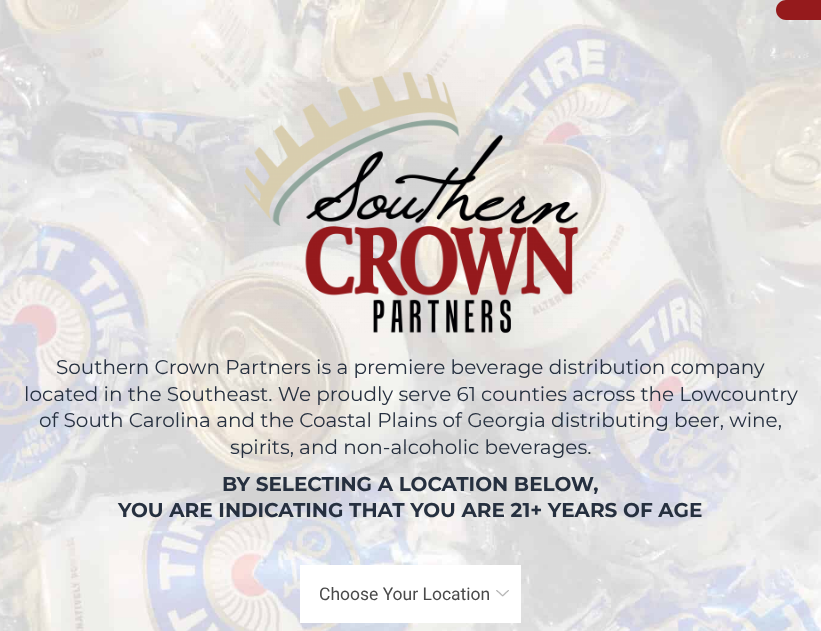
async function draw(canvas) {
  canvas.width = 821
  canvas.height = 631
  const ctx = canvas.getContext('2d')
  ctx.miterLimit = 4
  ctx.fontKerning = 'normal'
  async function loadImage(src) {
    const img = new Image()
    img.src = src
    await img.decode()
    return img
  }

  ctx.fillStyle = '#fff'
  ctx.fillRect(0, 0, 821, 631)
  ctx.drawImage(await loadImage('image0.png'), 0, 0, 821, 631)
  ctx.fillStyle = '#951a1c'
  ctx.beginPath()
  ctx.moveTo(786, 0)
  ctx.lineTo(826, 0)
  ctx.lineTo(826, 20)
  ctx.lineTo(786, 20)
  ctx.bezierCurveTo(780.5, 20, 776, 15.5, 776, 10)
  ctx.bezierCurveTo(776, 4.5, 780.5, 0, 786, 0)
  ctx.closePath()
  ctx.fill()
  ctx.drawImage(await loadImage('image1.png'), 244, 72, 335, 261)
  ctx.font = '20px Montserrat'
  ctx.fillStyle = '#26303f'
  ctx.fillText('Southern Crown Partners is a premiere beverage distribution company', 56, 374)
  ctx.fillText('located in the Southeast. We proudly serve 61 counties across the Lowcountry', 24, 401)
  ctx.fillText('of South Carolina and the Coastal Plains of Georgia distributing beer, wine,', 39, 427)
  ctx.fillText('spirits, and non-alcoholic beverages.', 230, 454)
  ctx.font = 'bold 20px Montserrat'
  ctx.fillText('BY SELECTING A LOCATION BELOW,', 222, 491)
  ctx.fillText('YOU ARE INDICATING THAT YOU ARE 21+ YEARS OF AGE', 118, 517)
  ctx.fillStyle = '#fff'
  ctx.fillRect(300, 565, 221, 58)
  ctx.drawImage(await loadImage('image2.png'), 496, 590, 13, 7)
  ctx.font = '17.5px Roboto'
  ctx.fillStyle = '#4a4a4a'
  ctx.fillText('Choose Your Location', 319, 600)
}

draw(document.querySelector('canvas'))
